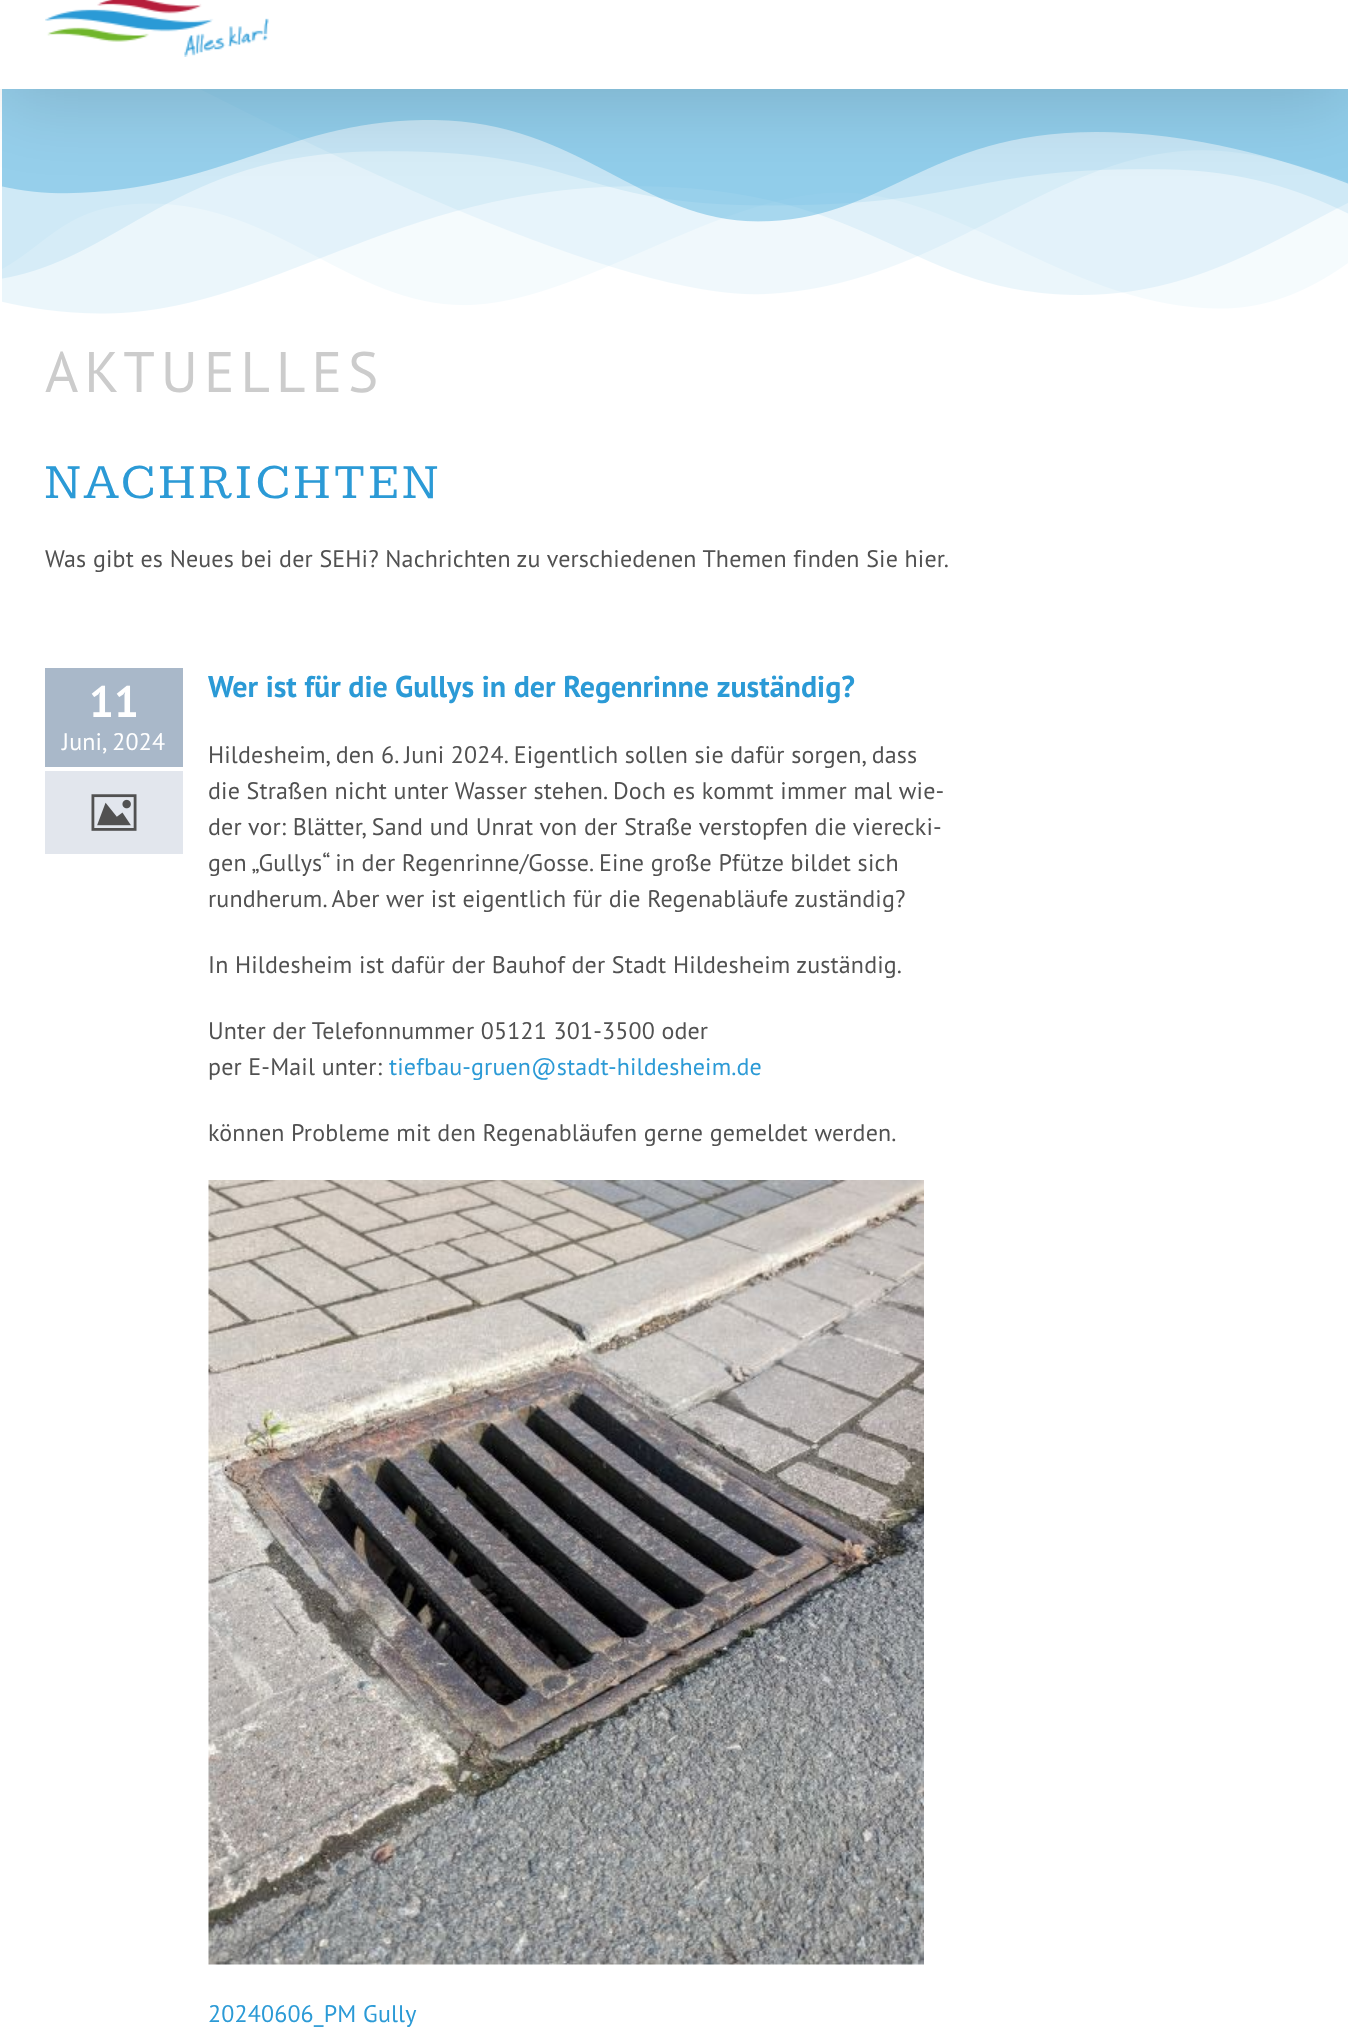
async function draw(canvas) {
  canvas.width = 1348
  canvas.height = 2043
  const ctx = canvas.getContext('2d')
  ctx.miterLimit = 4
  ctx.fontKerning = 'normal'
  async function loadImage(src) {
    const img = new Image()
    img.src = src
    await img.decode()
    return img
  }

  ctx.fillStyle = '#fff'
  ctx.fillRect(0, 0, 1348, 2043)
  ctx.drawImage(await loadImage('image1.png'), 2, 89, 1346, 225)
  ctx.fillStyle = '#00000024'
  ctx.filter = 'blur(37.5px)'
  ctx.beginPath()
  ctx.rect(3, -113, 1343, 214)
  ctx.fill()
  ctx.filter = 'none'
  ctx.fillStyle = '#fff'
  ctx.fillRect(0, 0, 1348, 89)
  ctx.drawImage(await loadImage('image0.png'), 45, 0, 224, 57)
  ctx.letterSpacing = '6px'
  ctx.font = '57px PT Sans'
  ctx.fillStyle = '#ccc'
  ctx.fillText('AKTUELLES', 45, 392)
  ctx.letterSpacing = '3.6px'
  ctx.font = '50.5px Kameron'
  ctx.fillStyle = '#2b9ad6'
  ctx.fillText('NACHRICHTEN', 45, 498)
  ctx.letterSpacing = '0.15px'
  ctx.font = '24px PT Sans'
  ctx.fillStyle = '#515151'
  ctx.fillText('Was gibt es Neues bei der SEHi? Nachrichten zu verschiedenen Themen finden Sie hier.', 45, 567)
  ctx.fillStyle = '#a9b8c9'
  ctx.fillRect(45, 668, 138, 99)
  ctx.font = 'bold 44px PT Sans'
  ctx.fillStyle = '#fff'
  ctx.fillText('11', 89, 717)
  ctx.font = '24px PT Sans'
  ctx.fillText('Juni, 2024', 62, 750)
  ctx.fillStyle = '#e2e6ed'
  ctx.fillRect(45, 771, 138, 83)
  ctx.drawImage(await loadImage('image2.png'), 91, 794, 46, 37)
  ctx.letterSpacing = '0px'
  ctx.font = 'bold 30px PT Sans'
  ctx.fillStyle = '#2b9ad6'
  ctx.fillText('Wer ist für die Gullys in der Regenrinne zuständig?', 208, 697)
  ctx.letterSpacing = '0.15px'
  ctx.font = '24px PT Sans'
  ctx.fillStyle = '#515151'
  ctx.fillText('Hildesheim, den 6. Juni 2024. Eigentlich sollen sie dafür sorgen, dass', 208, 763)
  ctx.fillText('die Straßen nicht unter Wasser stehen. Doch es kommt immer mal wie-', 208, 799)
  ctx.fillText('der vor: Blätter, Sand und Unrat von der Straße verstopfen die vierecki-', 208, 835)
  ctx.fillText('gen „Gullys“ in der Regenrinne/Gosse. Eine große Pfütze bildet sich', 208, 871)
  ctx.fillText('rundherum. Aber wer ist eigentlich für die Regenabläufe zuständig?', 208, 907)
  ctx.fillText('In Hildesheim ist dafür der Bauhof der Stadt Hildesheim zuständig.', 208, 973)
  ctx.fillText('Unter der Telefonnummer 05121 301-3500 oder', 208, 1039)
  ctx.fillText('per E-Mail unter:', 208, 1075)
  ctx.fillStyle = '#2b9ad6'
  ctx.fillText('tiefbau-gruen@stadt-hildesheim.de', 389, 1075)
  ctx.fillStyle = '#515151'
  ctx.fillText('können Probleme mit den Regenabläufen gerne gemeldet werden.', 208, 1141)
  ctx.drawImage(await loadImage('image3.png'), 208, 1180, 716, 785)
  ctx.fillStyle = '#2b9ad6'
  ctx.fillText('20240606_PM Gully', 208, 2022)
}

draw(document.querySelector('canvas'))
